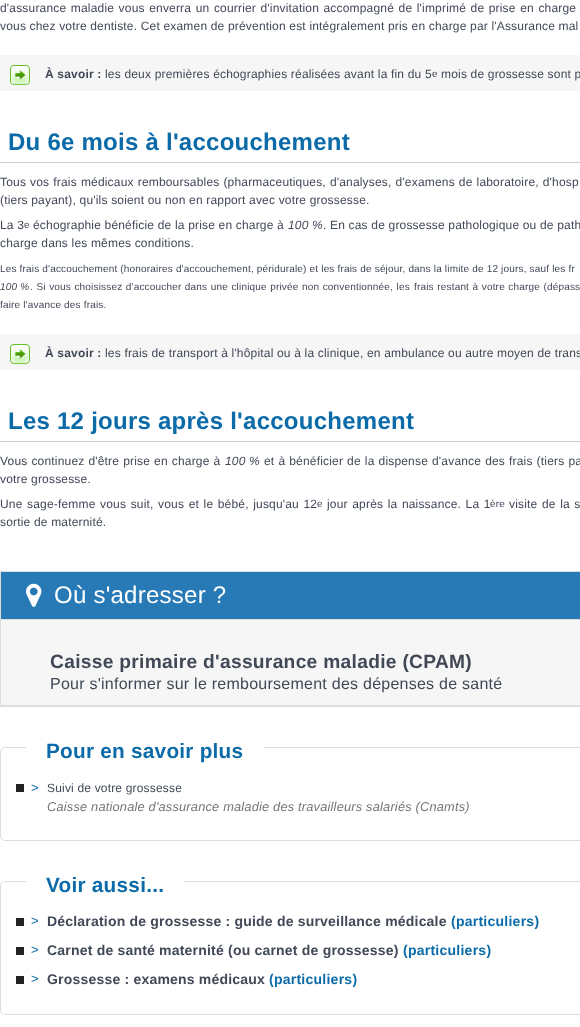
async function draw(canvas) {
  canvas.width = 580
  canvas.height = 1027
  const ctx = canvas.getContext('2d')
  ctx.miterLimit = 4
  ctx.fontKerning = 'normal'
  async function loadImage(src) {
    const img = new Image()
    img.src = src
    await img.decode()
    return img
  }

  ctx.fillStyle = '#fff'
  ctx.fillRect(0, 0, 580, 1027)
  ctx.letterSpacing = '0.18px'
  ctx.wordSpacing = '1px'
  ctx.font = '12px Liberation Sans'
  ctx.fillStyle = '#414856'
  ctx.fillText('d\'assurance maladie vous enverra un courrier d\'invitation accompagné de l\'imprimé de prise en charge', 0, 12)
  ctx.wordSpacing = '0px'
  ctx.fillText('vous chez votre dentiste. Cet examen de prévention est intégralement pris en charge par l\'Assurance mal', 0, 30)
  ctx.fillStyle = '#f6f6f6'
  ctx.fillRect(0, 55, 580, 36)
  ctx.drawImage(await loadImage('image0.png'), 10, 65, 20, 20)
  ctx.font = 'bold 12px Liberation Sans'
  ctx.fillStyle = '#414856'
  ctx.fillText('À savoir :', 45, 78)
  ctx.font = '12px Liberation Sans'
  ctx.fillText('les deux premières échographies réalisées avant la fin du 5', 105, 78)
  ctx.font = '10px Liberation Sans'
  ctx.fillText('e', 432, 77)
  ctx.font = '12px Liberation Sans'
  ctx.fillText('mois de grossesse sont p', 441, 78)
  ctx.fillStyle = '#ccc'
  ctx.fillRect(0, 162, 580, 1)
  ctx.letterSpacing = '0.25px'
  ctx.font = 'bold 24px Liberation Sans'
  ctx.fillStyle = '#0b6ba8'
  ctx.fillText('Du 6e mois à l\'accouchement', 8, 150)
  ctx.letterSpacing = '0.18px'
  ctx.wordSpacing = '0.5px'
  ctx.font = '12px Liberation Sans'
  ctx.fillStyle = '#414856'
  ctx.fillText('Tous vos frais médicaux remboursables (pharmaceutiques, d\'analyses, d\'examens de laboratoire, d\'hosp', 0, 186)
  ctx.wordSpacing = '0px'
  ctx.fillText('(tiers payant), qu\'ils soient ou non en rapport avec votre grossesse.', 0, 204)
  ctx.fillText('La 3', 0, 229)
  ctx.font = '10px Liberation Sans'
  ctx.fillText('e', 24, 228)
  ctx.font = '12px Liberation Sans'
  ctx.fillText('échographie bénéficie de la prise en charge à', 33, 229)
  ctx.font = 'italic 12px Liberation Sans'
  ctx.fillText('100 %', 288, 229)
  ctx.font = '12px Liberation Sans'
  ctx.fillText('. En cas de grossesse pathologique ou de path', 323, 229)
  ctx.fillText('charge dans les mêmes conditions.', 0, 247)
  ctx.font = '10px Liberation Sans'
  ctx.fillText('Les frais d\'accouchement (honoraires d\'accouchement, péridurale) et les frais de séjour, dans la limite de 12 jours, sauf les fr', 0, 272)
  ctx.font = 'italic 10px Liberation Sans'
  ctx.fillText('100 %', 0, 290)
  ctx.wordSpacing = '0.5px'
  ctx.font = '10px Liberation Sans'
  ctx.fillText('. Si vous choisissez d\'accoucher dans une clinique privée non conventionnée, les', 30, 290)
  ctx.fillText('frais restant à votre charge (dépass', 414, 290)
  ctx.wordSpacing = '0px'
  ctx.fillText('faire l\'avance des frais.', 0, 308)
  ctx.fillStyle = '#f6f6f6'
  ctx.fillRect(0, 334, 580, 36)
  ctx.drawImage(await loadImage('image0.png'), 10, 344, 20, 20)
  ctx.font = 'bold 12px Liberation Sans'
  ctx.fillStyle = '#414856'
  ctx.fillText('À savoir :', 45, 357)
  ctx.font = '12px Liberation Sans'
  ctx.fillText('les frais de transport à l\'hôpital ou à la clinique, en ambulance ou autre moyen de trans', 105, 357)
  ctx.fillStyle = '#ccc'
  ctx.fillRect(0, 441, 580, 1)
  ctx.letterSpacing = '0.25px'
  ctx.font = 'bold 24px Liberation Sans'
  ctx.fillStyle = '#0b6ba8'
  ctx.fillText('Les 12 jours après l\'accouchement', 8, 429)
  ctx.letterSpacing = '0.18px'
  ctx.wordSpacing = '0.5px'
  ctx.font = '12px Liberation Sans'
  ctx.fillStyle = '#414856'
  ctx.fillText('Vous continuez d\'être prise en charge à', 0, 465)
  ctx.wordSpacing = '0px'
  ctx.font = 'italic 12px Liberation Sans'
  ctx.fillText('100 %', 225, 465)
  ctx.wordSpacing = '0.5px'
  ctx.font = '12px Liberation Sans'
  ctx.fillText('et à bénéficier de la dispense d\'avance des frais (tiers pa', 264, 465)
  ctx.wordSpacing = '0px'
  ctx.fillText('votre grossesse.', 0, 483)
  ctx.wordSpacing = '1px'
  ctx.fillText('Une sage-femme vous suit, vous et le bébé, jusqu\'au 12', 0, 508)
  ctx.wordSpacing = '0px'
  ctx.font = '10px Liberation Sans'
  ctx.fillText('e', 317, 507)
  ctx.wordSpacing = '1px'
  ctx.font = '12px Liberation Sans'
  ctx.fillText('jour après la naissance. La 1', 327, 508)
  ctx.wordSpacing = '0px'
  ctx.font = '10px Liberation Sans'
  ctx.fillText('ère', 490, 507)
  ctx.wordSpacing = '1px'
  ctx.font = '12px Liberation Sans'
  ctx.fillText('visite de la s', 509, 508)
  ctx.wordSpacing = '0px'
  ctx.fillText('sortie de maternité.', 0, 526)
  ctx.fillStyle = '#f6f6f6'
  ctx.fillRect(1, 620, 579, 85)
  ctx.strokeStyle = '#ddd'
  ctx.strokeRect(0.5, 571.5, 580, 135)
  ctx.fillStyle = '#287ab7'
  ctx.fillRect(1, 572, 579, 47)
  ctx.fillStyle = '#ddd'
  ctx.fillRect(1, 619, 579, 1)
  ctx.drawImage(await loadImage('image1.png'), 26, 583, 16, 24)
  ctx.letterSpacing = '0.25px'
  ctx.font = '24px Liberation Sans'
  ctx.fillStyle = '#fff'
  ctx.fillText('Où s\'adresser ?', 54, 603)
  ctx.fillStyle = '#ddd'
  ctx.fillRect(1, 705, 579, 1)
  ctx.letterSpacing = '0.3px'
  ctx.font = 'bold 19.2px Liberation Sans'
  ctx.fillStyle = '#414856'
  ctx.fillText('Caisse primaire d\'assurance maladie (CPAM)', 50, 668)
  ctx.letterSpacing = '0.25px'
  ctx.font = '16px Liberation Sans'
  ctx.fillText('Pour s\'informer sur le remboursement des dépenses de santé', 50, 689)
  ctx.beginPath()
  ctx.roundRect(0.5, 747.5, 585, 93, 4.5)
  ctx.stroke()
  ctx.fillStyle = '#fff'
  ctx.fillRect(26, 747, 238, 1)
  ctx.font = 'bold 20.75px Liberation Sans'
  ctx.fillStyle = '#0b6ba8'
  ctx.fillText('Pour en savoir plus', 46, 758)
  ctx.fillStyle = '#232323'
  ctx.fillRect(16, 784, 8, 8)
  ctx.font = '13px Liberation Sans'
  ctx.fillStyle = '#0b6ba8'
  ctx.fillText('>', 31, 792)
  ctx.letterSpacing = '0.18px'
  ctx.font = '12px Liberation Sans'
  ctx.fillStyle = '#414856'
  ctx.fillText('Suivi de votre grossesse', 47, 792)
  ctx.letterSpacing = '0.2px'
  ctx.font = 'italic 12.8px Liberation Sans'
  ctx.fillStyle = '#757575'
  ctx.fillText('Caisse nationale d\'assurance maladie des travailleurs salariés (Cnamts)', 47, 811)
  ctx.beginPath()
  ctx.roundRect(0.5, 881.5, 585, 133, 4.5)
  ctx.stroke()
  ctx.fillStyle = '#fff'
  ctx.fillRect(26, 881, 158, 1)
  ctx.letterSpacing = '0.25px'
  ctx.font = 'bold 20.75px Liberation Sans'
  ctx.fillStyle = '#0b6ba8'
  ctx.fillText('Voir aussi...', 46, 892)
  ctx.fillStyle = '#232323'
  ctx.fillRect(16, 918, 8, 8)
  ctx.font = '13px Liberation Sans'
  ctx.fillStyle = '#0b6ba8'
  ctx.fillText('>', 31, 925)
  ctx.letterSpacing = '0.2px'
  ctx.font = 'bold 14px Liberation Sans'
  ctx.fillStyle = '#414856'
  ctx.fillText('Déclaration de grossesse : guide de surveillance médicale', 47, 926)
  ctx.letterSpacing = '0.25px'
  ctx.fillStyle = '#0b6ba8'
  ctx.fillText('(particuliers)', 451, 926)
  ctx.fillStyle = '#232323'
  ctx.fillRect(16, 947, 8, 8)
  ctx.font = '13px Liberation Sans'
  ctx.fillStyle = '#0b6ba8'
  ctx.fillText('>', 31, 954)
  ctx.letterSpacing = '0.2px'
  ctx.font = 'bold 14px Liberation Sans'
  ctx.fillStyle = '#414856'
  ctx.fillText('Carnet de santé maternité (ou carnet de grossesse)', 47, 955)
  ctx.letterSpacing = '0.25px'
  ctx.fillStyle = '#0b6ba8'
  ctx.fillText('(particuliers)', 403, 955)
  ctx.fillStyle = '#232323'
  ctx.fillRect(16, 976, 8, 8)
  ctx.font = '13px Liberation Sans'
  ctx.fillStyle = '#0b6ba8'
  ctx.fillText('>', 31, 983)
  ctx.letterSpacing = '0.2px'
  ctx.font = 'bold 14px Liberation Sans'
  ctx.fillStyle = '#414856'
  ctx.fillText('Grossesse : examens médicaux', 47, 984)
  ctx.letterSpacing = '0.25px'
  ctx.fillStyle = '#0b6ba8'
  ctx.fillText('(particuliers)', 269, 984)
}

draw(document.querySelector('canvas'))
